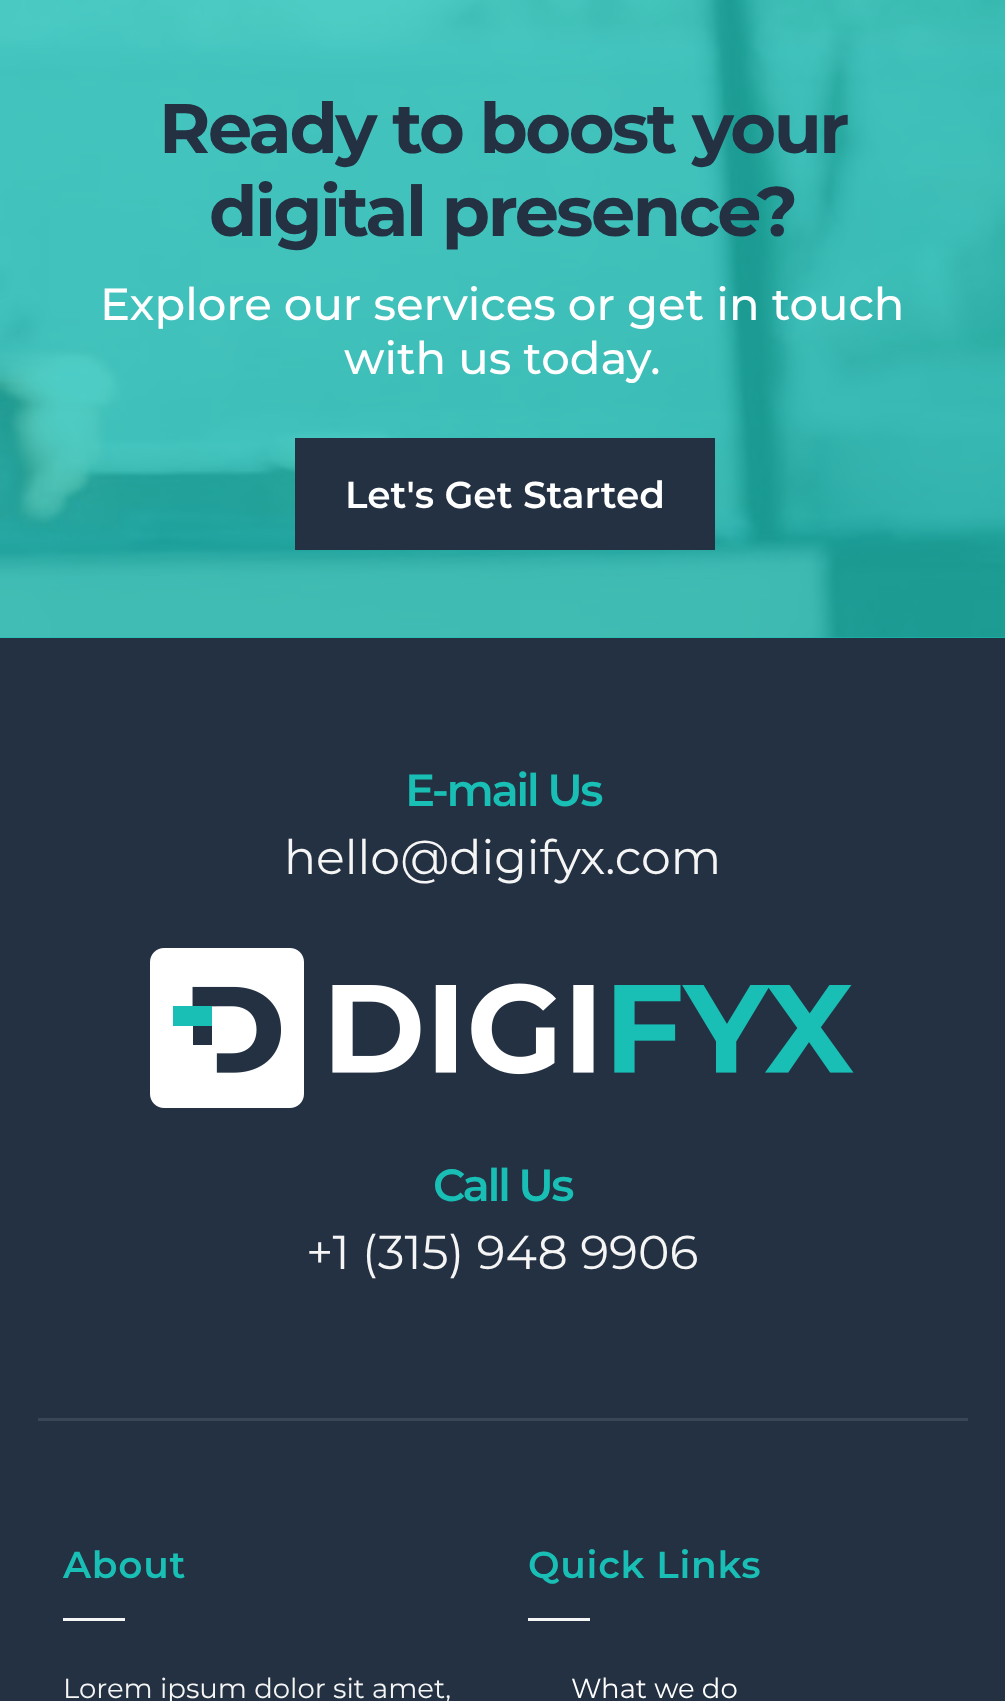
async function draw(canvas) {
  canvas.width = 1005
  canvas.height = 1701
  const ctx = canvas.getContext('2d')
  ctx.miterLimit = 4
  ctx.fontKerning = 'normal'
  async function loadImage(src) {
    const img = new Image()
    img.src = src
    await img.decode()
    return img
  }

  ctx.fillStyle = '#19beb5'
  ctx.fillRect(0, 0, 1005, 1701)
  ctx.drawImage(await loadImage('image0.png'), 0, 0, 1005, 638)
  ctx.letterSpacing = '-2.5px'
  ctx.font = 'bold 70px Montserrat'
  ctx.fillStyle = '#233142'
  ctx.fillText('Ready to boost your', 159, 153)
  ctx.fillText('digital presence?', 209, 236)
  ctx.letterSpacing = '0px'
  ctx.font = '500 45px Montserrat'
  ctx.fillStyle = '#fff'
  ctx.fillText('Explore our services or get in touch', 100, 320)
  ctx.fillText('with us today.', 344, 374)
  ctx.fillStyle = '#233142'
  ctx.fillRect(295, 438, 420, 112)
  ctx.font = '600 37.5px Montserrat'
  ctx.fillStyle = '#fff'
  ctx.fillText('Let\'s Get Started', 345, 508)
  ctx.fillStyle = '#233142'
  ctx.fillRect(0, 638, 1005, 1063)
  ctx.fillStyle = '#394655'
  ctx.fillRect(38, 1418, 930, 3)
  ctx.letterSpacing = '-2.5px'
  ctx.font = '600 45px Montserrat'
  ctx.fillStyle = '#19beb5'
  ctx.fillText('E-mail Us', 405, 806)
  ctx.letterSpacing = '0px'
  ctx.font = '47.5px Montserrat'
  ctx.fillStyle = '#f5f5f5'
  ctx.fillText('hello@digifyx.com', 284, 874)
  ctx.drawImage(await loadImage('image1.png'), 150, 948, 704, 160)
  ctx.letterSpacing = '-2.5px'
  ctx.font = '600 45px Montserrat'
  ctx.fillStyle = '#19beb5'
  ctx.fillText('Call Us', 433, 1201)
  ctx.letterSpacing = '0px'
  ctx.font = '47.5px Montserrat'
  ctx.fillStyle = '#f5f5f5'
  ctx.fillText('+1 (315) 948 9906', 306, 1269)
  ctx.letterSpacing = '0.75px'
  ctx.font = '600 37.5px Montserrat'
  ctx.fillStyle = '#19beb5'
  ctx.fillText('About', 63, 1578)
  ctx.fillStyle = '#f5f5f5'
  ctx.fillRect(63, 1618, 62, 3)
  ctx.letterSpacing = '0px'
  ctx.font = '27.5px Montserrat'
  ctx.fillText('Lorem ipsum dolor sit amet,', 63, 1698)
  ctx.letterSpacing = '0.75px'
  ctx.font = '600 37.5px Montserrat'
  ctx.fillStyle = '#19beb5'
  ctx.fillText('Quick Links', 528, 1578)
  ctx.fillStyle = '#f5f5f5'
  ctx.fillRect(528, 1618, 62, 3)
  ctx.letterSpacing = '0px'
  ctx.font = '27.5px Montserrat'
  ctx.fillStyle = '#fff'
  ctx.fillText('What we do', 571, 1698)
}

draw(document.querySelector('canvas'))
